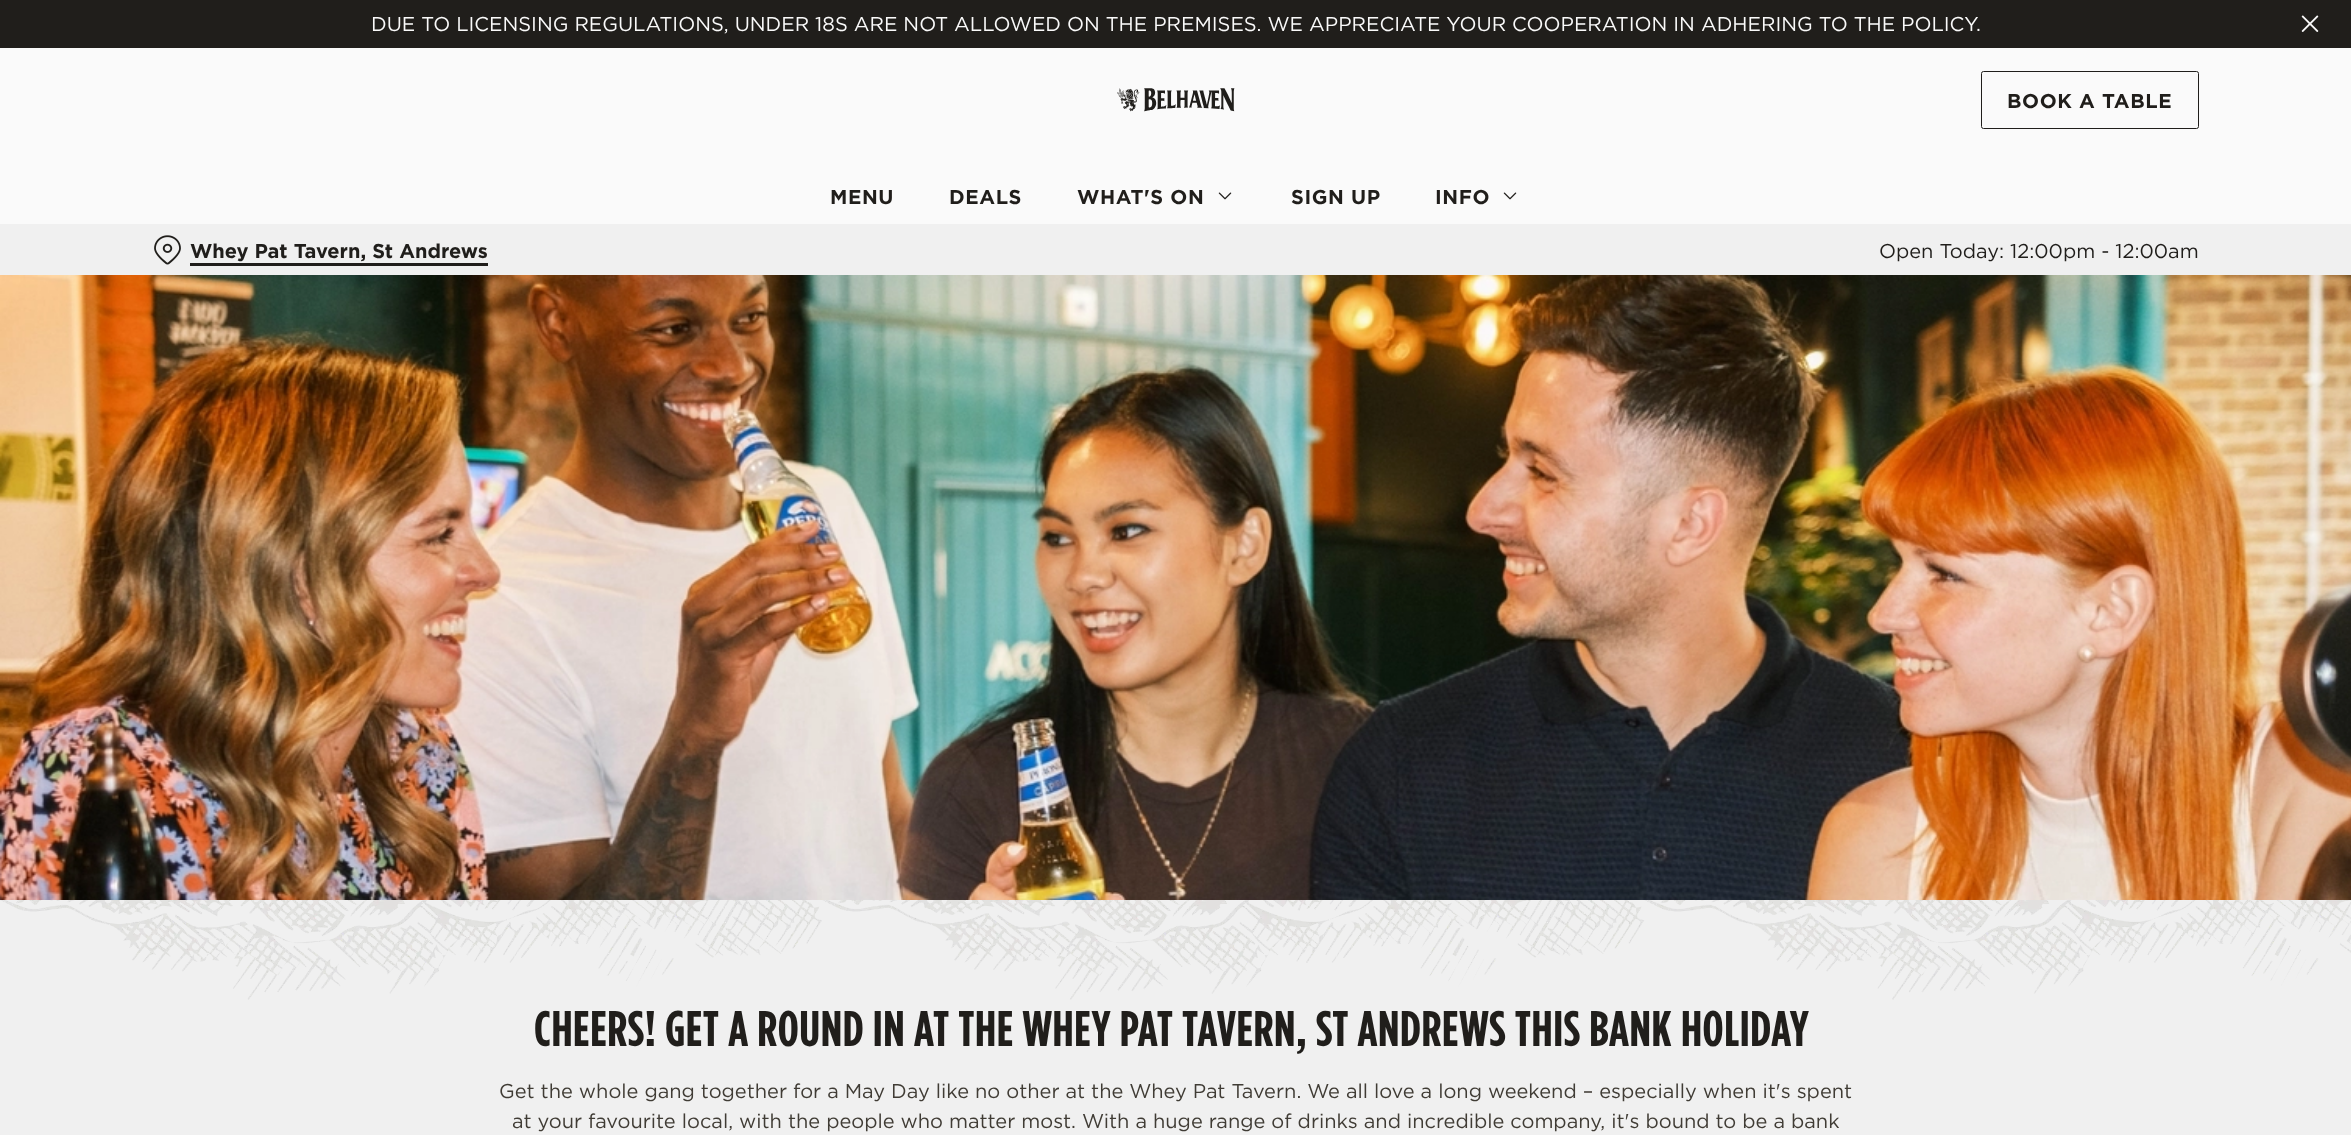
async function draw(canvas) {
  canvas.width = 2351
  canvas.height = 1135
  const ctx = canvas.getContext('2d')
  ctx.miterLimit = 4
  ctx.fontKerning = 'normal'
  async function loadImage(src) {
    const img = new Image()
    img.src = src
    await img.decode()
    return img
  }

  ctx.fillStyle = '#f0f0f0'
  ctx.fillRect(0, 0, 2351, 1135)
  ctx.fillStyle = '#201e1b'
  ctx.fillRect(0, 0, 2351, 48)
  ctx.font = '20px Gotham'
  ctx.fillStyle = '#fafafa'
  ctx.fillText('DUE TO LICENSING REGULATIONS, UNDER 18S ARE NOT ALLOWED ON THE PREMISES. WE APPRECIATE YOUR COOPERATION IN ADHERING TO THE POLICY.', 371, 31)
  ctx.drawImage(await loadImage('image0.png'), 2301, 15, 18, 17)
  ctx.fillRect(0, 48, 2351, 176)
  ctx.drawImage(await loadImage('image1.png'), 1117, 88, 118, 24)
  ctx.beginPath()
  ctx.roundRect(1981.5, 71.5, 217, 57, 2)
  ctx.strokeStyle = '#201e1b'
  ctx.stroke()
  ctx.letterSpacing = '0.6px'
  ctx.font = 'bold 20px Gotham'
  ctx.fillStyle = '#201e1b'
  ctx.fillText('BOOK A TABLE', 2007, 108)
  ctx.fillText('MENU', 830, 204)
  ctx.fillText('DEALS', 949, 204)
  ctx.fillText('WHAT\'S ON', 1077, 204)
  ctx.drawImage(await loadImage('image2.png'), 1218, 192, 14, 8)
  ctx.fillText('SIGN UP', 1291, 204)
  ctx.fillText('INFO', 1435, 204)
  ctx.drawImage(await loadImage('image2.png'), 1503, 192, 14, 8)
  ctx.drawImage(await loadImage('image3.png'), 154, 235, 27, 30)
  ctx.letterSpacing = '0px'
  ctx.fillText('Whey Pat Tavern, St Andrews', 190, 258)
  ctx.fillRect(190, 263, 298, 3)
  ctx.font = '20px Gotham'
  ctx.fillText('Open Today: 12:00pm - 12:00am', 1879, 258)
  ctx.drawImage(await loadImage('image4.png'), 0, 275, 2351, 625)
  ctx.drawImage(await loadImage('image5.png'), 0, 900, 2351, 100)
  ctx.letterSpacing = '0.6px'
  ctx.font = 'bold 50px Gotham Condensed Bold'
  ctx.fillText('CHEERS! GET A ROUND IN AT THE WHEY PAT TAVERN, ST ANDREWS THIS BANK HOLIDAY', 534, 1046)
  ctx.letterSpacing = '0px'
  ctx.font = '20px Gotham'
  ctx.fillStyle = '#403c35'
  ctx.fillText('Get the whole gang together for a May Day like no other at the Whey Pat Tavern. We all love a long weekend – especially when it\'s spent', 499, 1098)
  ctx.fillText('at your favourite local, with the people who matter most. With a huge range of drinks and incredible company, it\'s bound to be a bank', 512, 1128)
}

draw(document.querySelector('canvas'))
